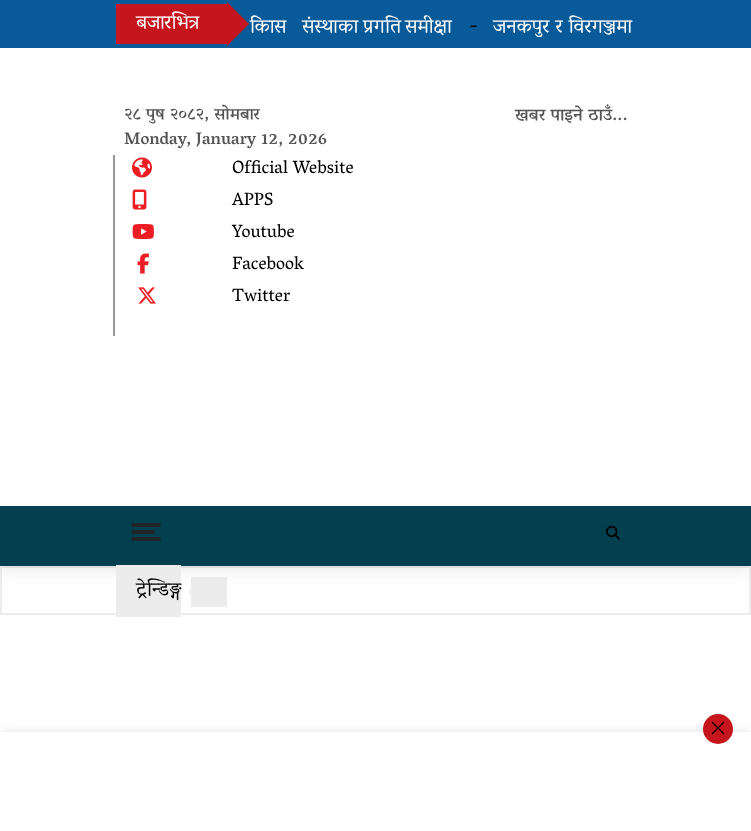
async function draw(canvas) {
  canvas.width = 751
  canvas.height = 831
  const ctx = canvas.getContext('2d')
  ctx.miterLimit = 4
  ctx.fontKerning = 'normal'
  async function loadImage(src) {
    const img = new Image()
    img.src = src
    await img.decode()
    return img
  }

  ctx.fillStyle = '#fff'
  ctx.fillRect(0, 0, 751, 831)
  ctx.fillStyle = '#085a99'
  ctx.fillRect(0, 0, 751, 48)
  ctx.fillStyle = '#c4161c'
  ctx.fillRect(116, 4, 111, 40)
  ctx.font = '20px Vesper Libre'
  ctx.fillStyle = '#fff'
  ctx.fillText('बजारभित्र', 136, 28)
  ctx.fillStyle = '#c4161c'
  ctx.beginPath()
  ctx.moveTo(227, 46)
  ctx.lineTo(227, 2)
  ctx.lineTo(249, 24)
  ctx.closePath()
  ctx.fill()
  ctx.wordSpacing = '0.5px'
  ctx.fillStyle = '#fff'
  ctx.fillText('िकास', 250, 32)
  ctx.fillText('संस्थाका', 302, 32)
  ctx.fillText('प्रगति', 363, 32)
  ctx.fillText('समीक्षा', 405, 32)
  ctx.wordSpacing = '0px'
  ctx.fillStyle = '#000'
  ctx.fillText('-', 469, 32)
  ctx.wordSpacing = '0.5px'
  ctx.fillStyle = '#fff'
  ctx.fillText('जनकपुर र विरगञ्जमा', 493, 32)
  ctx.wordSpacing = '0px'
  ctx.font = '500 17px Vesper Libre'
  ctx.fillStyle = '#545454'
  ctx.fillText('२८ पुष २०८२, सोमबार', 124, 119)
  ctx.fillText('Monday, January 12, 2026', 124, 144)
  ctx.font = '500 17.5px Vesper Libre'
  ctx.fillText('खबर पाइने ठाउँ...', 515, 120)
  ctx.fillStyle = '#999595'
  ctx.fillRect(113, 155, 2, 181)
  ctx.drawImage(await loadImage('image0.png'), 132, 157, 20, 21)
  ctx.font = '18px Vesper Libre'
  ctx.fillStyle = '#000'
  ctx.fillText('Official Website', 232, 173)
  ctx.drawImage(await loadImage('image1.png'), 132, 189, 15, 21)
  ctx.fillText('APPS', 232, 205)
  ctx.drawImage(await loadImage('image2.png'), 132, 224, 22, 15)
  ctx.fillText('Youtube', 232, 237)
  ctx.drawImage(await loadImage('image3.png'), 137, 253, 12, 21)
  ctx.fillText('Facebook', 232, 269)
  ctx.drawImage(await loadImage('image4.png'), 138, 287, 18, 17)
  ctx.fillText('Twitter', 232, 301)
  ctx.strokeStyle = '#ececec'
  ctx.lineWidth = 2
  ctx.strokeRect(1, 567, 749, 47)
  ctx.fillStyle = '#00000014'
  ctx.filter = 'blur(7.5px)'
  ctx.beginPath()
  ctx.rect(0, 511, 751, 60)
  ctx.fill()
  ctx.filter = 'none'
  ctx.fillStyle = '#02404f'
  ctx.fillRect(0, 506, 751, 60)
  ctx.fillStyle = '#212529'
  ctx.beginPath()
  ctx.roundRect(131, 523, 30, 4, 2)
  ctx.fill()
  ctx.beginPath()
  ctx.roundRect(131, 537, 30, 4, 2)
  ctx.fill()
  ctx.beginPath()
  ctx.roundRect(131, 530, 24, 4, 2)
  ctx.fill()
  ctx.drawImage(await loadImage('image5.png'), 606, 525, 14, 15)
  ctx.fillStyle = '#ececec'
  ctx.fillRect(116, 565, 65, 52)
  ctx.fillRect(191, 577, 36, 30)
  ctx.font = '20px Vesper Libre'
  ctx.fillStyle = '#000'
  ctx.fillText('ट्रेन्डिङ्ग', 136, 595)
  ctx.fillStyle = '#ececec'
  ctx.beginPath()
  ctx.moveTo(199, 580.5)
  ctx.lineTo(210.5, 592)
  ctx.lineTo(199, 603.5)
  ctx.lineTo(188, 592)
  ctx.closePath()
  ctx.fill()
  ctx.fillStyle = '#0000004a'
  ctx.filter = 'blur(7px)'
  ctx.beginPath()
  ctx.rect(0, 737, 751, 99)
  ctx.fill()
  ctx.filter = 'none'
  ctx.fillStyle = '#fff'
  ctx.fillRect(0, 732, 751, 99)
  ctx.fillStyle = '#c4161c'
  ctx.beginPath()
  ctx.arc(718, 729, 15, 0, 2 * Math.PI)
  ctx.fill()
  ctx.beginPath()
  ctx.moveTo(724, 734)
  ctx.lineTo(712, 722)
  ctx.moveTo(724, 722)
  ctx.lineTo(712, 734)
  ctx.strokeStyle = '#000'
  ctx.lineWidth = 1.1
  ctx.stroke()
}

draw(document.querySelector('canvas'))
